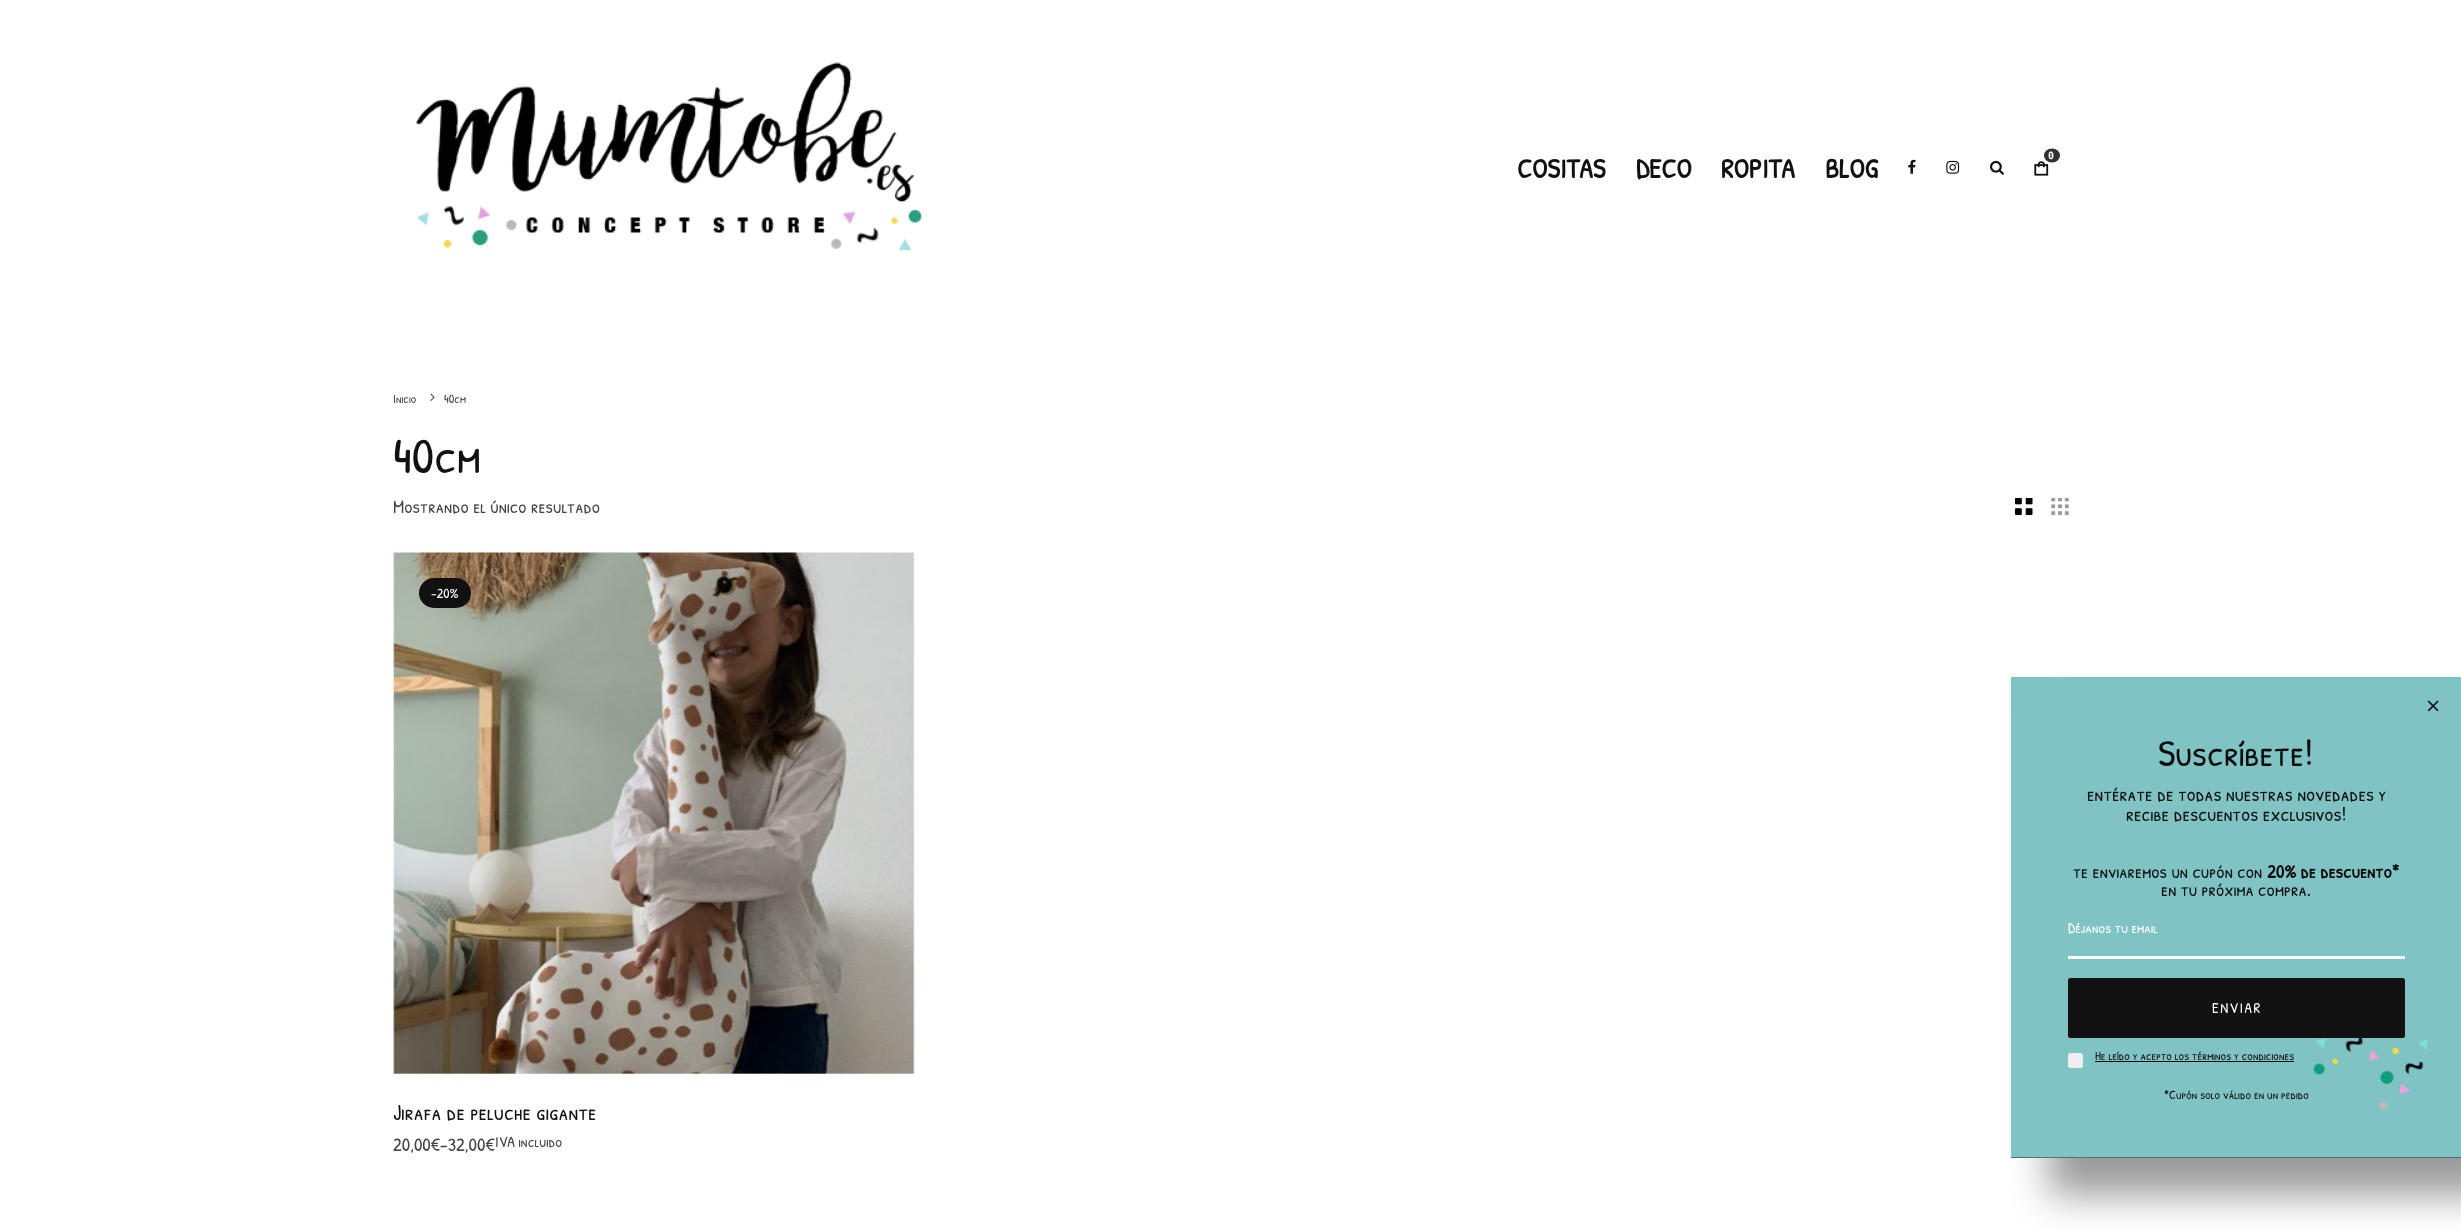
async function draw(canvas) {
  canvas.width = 2461
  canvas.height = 1232
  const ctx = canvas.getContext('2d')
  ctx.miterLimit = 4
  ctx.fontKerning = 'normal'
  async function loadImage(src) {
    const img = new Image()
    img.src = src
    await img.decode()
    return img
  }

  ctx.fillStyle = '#fff'
  ctx.fillRect(0, 0, 2461, 1232)
  ctx.drawImage(await loadImage('image0.png'), 416, 62, 506, 189)
  ctx.drawImage(await loadImage('image1.png'), 2034, 161, 15, 15)
  ctx.fillStyle = '#313131'
  ctx.beginPath()
  ctx.ellipse(2052, 155.5, 8, 7, 0, 0, 2 * Math.PI)
  ctx.fill()
  ctx.font = 'bold 10px DejaVu Sans Mono'
  ctx.fillStyle = '#fff'
  ctx.fillText('0', 2048, 159)
  ctx.font = 'bold 27.5px Patrick Hand SC'
  ctx.fillStyle = '#111'
  ctx.fillText('COSITAS', 1517, 178)
  ctx.fillText('DECO', 1636, 178)
  ctx.fillText('ROPITA', 1721, 178)
  ctx.fillText('BLOG', 1825, 178)
  ctx.drawImage(await loadImage('image2.png'), 1908, 159, 8, 15)
  ctx.drawImage(await loadImage('image3.png'), 1946, 160, 14, 14)
  ctx.drawImage(await loadImage('image4.png'), 1990, 160, 14, 15)
  ctx.font = '12.5px Patrick Hand SC'
  ctx.fillStyle = '#444'
  ctx.fillText('Inicio', 393, 403)
  ctx.drawImage(await loadImage('image5.png'), 430, 393, 5, 8)
  ctx.fillText('40cm', 444, 403)
  ctx.font = '50px Patrick Hand SC'
  ctx.fillStyle = '#111'
  ctx.fillText('40cm', 393, 473)
  ctx.font = '18.75px Patrick Hand SC'
  ctx.fillStyle = '#444'
  ctx.fillText('Mostrando el único resultado', 393, 513)
  ctx.drawImage(await loadImage('image6.png'), 2015, 498, 18, 17)
  ctx.drawImage(await loadImage('image7.png'), 2051, 498, 18, 17)
  ctx.fillStyle = '#eee'
  ctx.fillRect(394, 553, 520, 521)
  ctx.drawImage(await loadImage('image8.png'), 393, 552, 522, 522)
  ctx.fillStyle = '#111'
  ctx.beginPath()
  ctx.roundRect(419, 578, 52, 30, 15)
  ctx.fill()
  ctx.font = '14px Patrick Hand SC'
  ctx.fillStyle = '#fff'
  ctx.fillText('-20%', 431, 598)
  ctx.font = '22.5px Patrick Hand SC'
  ctx.fillStyle = '#111'
  ctx.fillText('Jirafa de peluche gigante', 393, 1120)
  ctx.font = '18.75px Patrick Hand SC'
  ctx.fillStyle = '#444'
  ctx.fillText('20,00€–32,00€', 393, 1151)
  ctx.font = '15.5px Patrick Hand SC'
  ctx.fillText('IVA incluido', 495, 1147)
  ctx.fillStyle = '#00000066'
  ctx.filter = 'blur(19px)'
  ctx.beginPath()
  ctx.rect(2049, 715, 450, 480)
  ctx.fill()
  ctx.filter = 'none'
  ctx.fillStyle = '#1d1d1e'
  ctx.fillRect(2011, 1157, 450, 1)
  ctx.drawImage(await loadImage('image9.png'), 2011, 677, 450, 481)
  ctx.drawImage(await loadImage('image10.png'), 2427, 700, 12, 12)
  ctx.font = '37.5px Patrick Hand SC'
  ctx.fillStyle = '#0a0a0a'
  ctx.fillText('Suscríbete!', 2158, 766)
  ctx.font = '20px Patrick Hand SC'
  ctx.fillText('entérate de todas nuestras novedades y', 2087, 801)
  ctx.fillText('recibe descuentos exclusivos!', 2126, 821)
  ctx.font = '18.75px Patrick Hand SC'
  ctx.fillText('te enviaremos un cupón con', 2073, 878)
  ctx.font = 'bold 18.75px Patrick Hand SC'
  ctx.fillText('20% de descuento*', 2267, 878)
  ctx.font = '18.75px Patrick Hand SC'
  ctx.fillText('en tu próxima compra.', 2161, 896)
  ctx.fillStyle = '#fff'
  ctx.fillRect(2068, 956, 337, 3)
  ctx.font = '15px Patrick Hand SC'
  ctx.fillText('Déjanos tu email', 2068, 933)
  ctx.fillStyle = '#121212'
  ctx.beginPath()
  ctx.roundRect(2068, 978, 337, 60, 2.5)
  ctx.fill()
  ctx.letterSpacing = '1.5px'
  ctx.fillStyle = '#fff'
  ctx.fillText('ENVIAR', 2212, 1013)
  ctx.fillStyle = '#eee'
  ctx.beginPath()
  ctx.roundRect(2068, 1053, 15, 15, 2.5)
  ctx.fill()
  ctx.letterSpacing = '0px'
  ctx.font = '12.5px Patrick Hand SC'
  ctx.fillStyle = '#0a0a0a'
  ctx.fillText('He leído y acepto los términos y condiciones', 2095, 1060)
  ctx.fillRect(2095, 1061, 199, 1)
  ctx.fillText('*Cupón solo válido en un pedido', 2164, 1099)
}

draw(document.querySelector('canvas'))
